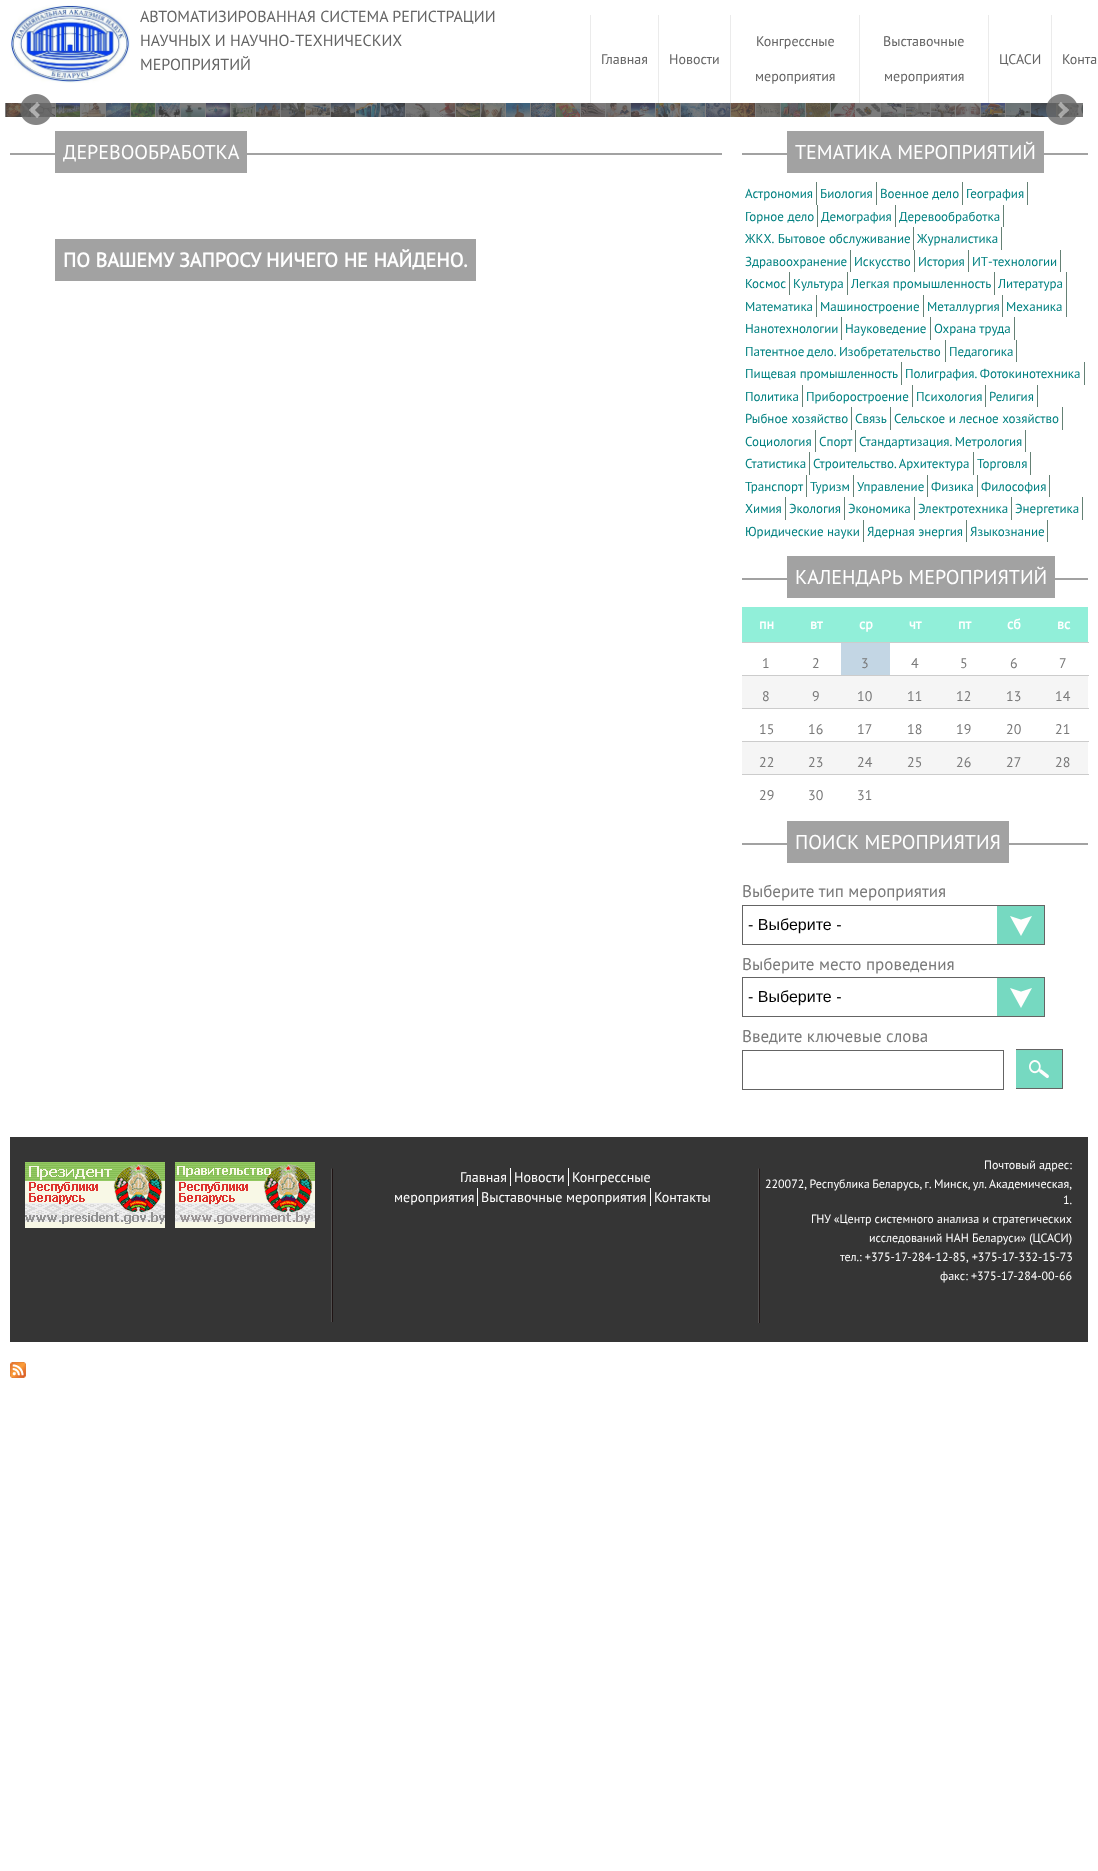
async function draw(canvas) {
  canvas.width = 1098
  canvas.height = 1871
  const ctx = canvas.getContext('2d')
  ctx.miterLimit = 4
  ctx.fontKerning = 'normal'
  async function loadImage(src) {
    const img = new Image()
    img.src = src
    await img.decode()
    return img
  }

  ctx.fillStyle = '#fff'
  ctx.fillRect(0, 0, 1098, 1871)
  ctx.drawImage(await loadImage('image0.png'), 10, 5, 120, 78)
  ctx.font = '16px PT Sans'
  ctx.fillStyle = '#646464'
  ctx.fillText('АВТОМАТИЗИРОВАННАЯ СИСТЕМА РЕГИСТРАЦИИ', 140, 22)
  ctx.fillText('НАУЧНЫХ И НАУЧНО-ТЕХНИЧЕСКИХ', 140, 46)
  ctx.fillText('МЕРОПРИЯТИЙ', 140, 70)
  ctx.fillStyle = '#ebebeb'
  ctx.fillRect(590, 15, 1, 88)
  ctx.fillRect(658, 15, 1, 88)
  ctx.font = '14px PT Sans'
  ctx.fillStyle = '#646464'
  ctx.fillText('Главная', 601, 64)
  ctx.fillStyle = '#ebebeb'
  ctx.fillRect(730, 15, 1, 88)
  ctx.fillStyle = '#646464'
  ctx.fillText('Новости', 669, 64)
  ctx.fillStyle = '#ebebeb'
  ctx.fillRect(859, 15, 1, 88)
  ctx.fillStyle = '#646464'
  ctx.fillText('Конгрессные', 756, 46)
  ctx.fillText('мероприятия', 755, 81)
  ctx.fillStyle = '#ebebeb'
  ctx.fillRect(988, 15, 1, 88)
  ctx.fillStyle = '#646464'
  ctx.fillText('Выставочные', 883, 46)
  ctx.fillText('мероприятия', 884, 81)
  ctx.fillStyle = '#ebebeb'
  ctx.fillRect(1051, 15, 1, 88)
  ctx.fillStyle = '#646464'
  ctx.fillText('ЦСАСИ', 999, 64)
  ctx.fillText('Конта', 1062, 64)
  ctx.drawImage(await loadImage('image3.png'), 6, 103, 25, 14)
  ctx.drawImage(await loadImage('image4.png'), 31, 103, 24, 14)
  ctx.fillStyle = '#505050bf'
  ctx.fillRect(30, 103, 25, 14)
  ctx.drawImage(await loadImage('image1.png'), 20, 94, 32, 31)
  ctx.drawImage(await loadImage('image44.png'), 1031, 103, 25, 14)
  ctx.fillRect(1030, 103, 25, 14)
  ctx.drawImage(await loadImage('image45.png'), 1056, 103, 24, 14)
  ctx.fillRect(1055, 103, 25, 14)
  ctx.drawImage(await loadImage('image2.png'), 1046, 94, 32, 31)
  ctx.fillStyle = '#7c7c7c'
  ctx.fillRect(5, 103, 1, 14)
  ctx.drawImage(await loadImage('image5.png'), 56, 103, 24, 14)
  ctx.fillStyle = '#505050bf'
  ctx.fillRect(55, 103, 25, 14)
  ctx.drawImage(await loadImage('image6.png'), 81, 103, 24, 14)
  ctx.fillRect(80, 103, 25, 14)
  ctx.drawImage(await loadImage('image7.png'), 106, 103, 24, 14)
  ctx.fillRect(105, 103, 25, 14)
  ctx.drawImage(await loadImage('image8.png'), 131, 103, 24, 14)
  ctx.fillRect(130, 103, 25, 14)
  ctx.drawImage(await loadImage('image9.png'), 156, 103, 24, 14)
  ctx.fillRect(155, 103, 25, 14)
  ctx.drawImage(await loadImage('image10.png'), 181, 103, 24, 14)
  ctx.fillRect(180, 103, 25, 14)
  ctx.drawImage(await loadImage('image11.png'), 206, 103, 24, 14)
  ctx.fillRect(205, 103, 25, 14)
  ctx.drawImage(await loadImage('image12.png'), 231, 103, 24, 14)
  ctx.fillRect(230, 103, 25, 14)
  ctx.drawImage(await loadImage('image13.png'), 256, 103, 24, 14)
  ctx.fillRect(255, 103, 25, 14)
  ctx.drawImage(await loadImage('image14.png'), 281, 103, 24, 14)
  ctx.fillRect(280, 103, 25, 14)
  ctx.drawImage(await loadImage('image15.png'), 306, 103, 24, 14)
  ctx.fillRect(305, 103, 25, 14)
  ctx.drawImage(await loadImage('image16.png'), 331, 103, 24, 14)
  ctx.fillRect(330, 103, 25, 14)
  ctx.drawImage(await loadImage('image17.png'), 356, 103, 24, 14)
  ctx.fillRect(355, 103, 25, 14)
  ctx.drawImage(await loadImage('image18.png'), 381, 103, 24, 14)
  ctx.fillRect(380, 103, 25, 14)
  ctx.drawImage(await loadImage('image19.png'), 406, 103, 24, 14)
  ctx.fillRect(405, 103, 25, 14)
  ctx.drawImage(await loadImage('image20.png'), 432, 103, 23, 14)
  ctx.fillRect(430, 103, 25, 14)
  ctx.drawImage(await loadImage('image21.png'), 456, 103, 24, 14)
  ctx.fillRect(455, 103, 25, 14)
  ctx.drawImage(await loadImage('image22.png'), 481, 103, 24, 14)
  ctx.fillRect(480, 103, 25, 14)
  ctx.drawImage(await loadImage('image23.png'), 506, 103, 24, 14)
  ctx.fillRect(505, 103, 25, 14)
  ctx.drawImage(await loadImage('image24.png'), 531, 103, 24, 14)
  ctx.fillRect(530, 103, 25, 14)
  ctx.drawImage(await loadImage('image25.png'), 556, 103, 24, 14)
  ctx.fillRect(555, 103, 25, 14)
  ctx.drawImage(await loadImage('image26.png'), 581, 103, 24, 14)
  ctx.fillRect(580, 103, 25, 14)
  ctx.drawImage(await loadImage('image27.png'), 606, 103, 24, 14)
  ctx.fillRect(605, 103, 25, 14)
  ctx.drawImage(await loadImage('image28.png'), 631, 103, 24, 14)
  ctx.fillRect(630, 103, 25, 14)
  ctx.drawImage(await loadImage('image29.png'), 656, 103, 24, 14)
  ctx.fillRect(655, 103, 25, 14)
  ctx.drawImage(await loadImage('image30.png'), 681, 103, 24, 14)
  ctx.fillRect(680, 103, 25, 14)
  ctx.drawImage(await loadImage('image31.png'), 706, 103, 24, 14)
  ctx.fillRect(705, 103, 25, 14)
  ctx.drawImage(await loadImage('image32.png'), 731, 103, 24, 14)
  ctx.fillRect(730, 103, 25, 14)
  ctx.drawImage(await loadImage('image33.png'), 756, 103, 24, 14)
  ctx.fillRect(755, 103, 25, 14)
  ctx.drawImage(await loadImage('image34.png'), 781, 103, 24, 14)
  ctx.fillRect(780, 103, 25, 14)
  ctx.drawImage(await loadImage('image35.png'), 806, 103, 24, 14)
  ctx.fillRect(805, 103, 25, 14)
  ctx.drawImage(await loadImage('image36.png'), 831, 103, 24, 14)
  ctx.fillRect(830, 103, 25, 14)
  ctx.drawImage(await loadImage('image37.png'), 856, 103, 24, 14)
  ctx.fillRect(855, 103, 25, 14)
  ctx.drawImage(await loadImage('image38.png'), 881, 103, 24, 14)
  ctx.fillRect(880, 103, 25, 14)
  ctx.drawImage(await loadImage('image39.png'), 906, 103, 24, 14)
  ctx.fillRect(905, 103, 25, 14)
  ctx.drawImage(await loadImage('image40.png'), 931, 103, 24, 14)
  ctx.fillRect(930, 103, 25, 14)
  ctx.drawImage(await loadImage('image41.png'), 956, 103, 24, 14)
  ctx.fillRect(955, 103, 25, 14)
  ctx.drawImage(await loadImage('image42.png'), 981, 103, 24, 14)
  ctx.fillRect(980, 103, 25, 14)
  ctx.drawImage(await loadImage('image43.png'), 1006, 103, 24, 14)
  ctx.fillRect(1005, 103, 25, 14)
  ctx.drawImage(await loadImage('image46.png'), 1081, 104, 2, 10)
  ctx.fillRect(1080, 103, 3, 14)
  ctx.fillStyle = '#a2a2a2'
  ctx.fillRect(10, 153, 712, 2)
  ctx.fillRect(55, 131, 192, 42)
  ctx.font = '20px PT Sans'
  ctx.fillStyle = '#fff'
  ctx.fillText('ДЕРЕВООБРАБОТКА', 63, 159)
  ctx.fillStyle = '#a2a2a2'
  ctx.fillRect(55, 239, 421, 42)
  ctx.wordSpacing = '0.25px'
  ctx.font = 'bold 20px PT Sans'
  ctx.fillStyle = '#fff'
  ctx.fillText('ПО ВАШЕМУ ЗАПРОСУ НИЧЕГО НЕ НАЙДЕНО.', 63, 267)
  ctx.fillStyle = '#a2a2a2'
  ctx.fillRect(742, 153, 346, 2)
  ctx.fillRect(787, 131, 257, 42)
  ctx.wordSpacing = '1px'
  ctx.font = '20px PT Sans'
  ctx.fillStyle = '#fff'
  ctx.fillText('ТЕМАТИКА МЕРОПРИЯТИЙ', 795, 159)
  ctx.fillStyle = '#658175'
  ctx.fillRect(816, 182, 1, 23)
  ctx.wordSpacing = '0px'
  ctx.font = '13px PT Sans'
  ctx.fillStyle = '#008080'
  ctx.fillText('Астрономия', 745, 198)
  ctx.fillStyle = '#658175'
  ctx.fillRect(876, 182, 1, 23)
  ctx.fillStyle = '#008080'
  ctx.fillText('Биология', 820, 198)
  ctx.fillStyle = '#658175'
  ctx.fillRect(962, 182, 1, 23)
  ctx.fillStyle = '#008080'
  ctx.fillText('Военное дело', 880, 198)
  ctx.fillStyle = '#658175'
  ctx.fillRect(1027, 182, 1, 23)
  ctx.fillStyle = '#008080'
  ctx.fillText('География', 966, 198)
  ctx.fillStyle = '#658175'
  ctx.fillRect(817, 205, 1, 22)
  ctx.fillStyle = '#008080'
  ctx.fillText('Горное дело', 745, 221)
  ctx.fillStyle = '#658175'
  ctx.fillRect(895, 205, 1, 22)
  ctx.fillStyle = '#008080'
  ctx.fillText('Демография', 821, 221)
  ctx.fillStyle = '#658175'
  ctx.fillRect(1003, 205, 1, 22)
  ctx.fillStyle = '#008080'
  ctx.fillText('Деревообработка', 899, 221)
  ctx.fillStyle = '#658175'
  ctx.fillRect(913, 227, 1, 23)
  ctx.fillStyle = '#008080'
  ctx.fillText('ЖКХ. Бытовое обслуживание', 745, 243)
  ctx.fillStyle = '#658175'
  ctx.fillRect(1001, 227, 1, 23)
  ctx.fillStyle = '#008080'
  ctx.fillText('Журналистика', 917, 243)
  ctx.fillStyle = '#658175'
  ctx.fillRect(850, 250, 1, 22)
  ctx.fillStyle = '#008080'
  ctx.fillText('Здравоохранение', 745, 266)
  ctx.fillStyle = '#658175'
  ctx.fillRect(914, 250, 1, 22)
  ctx.fillStyle = '#008080'
  ctx.fillText('Искусство', 854, 266)
  ctx.fillStyle = '#658175'
  ctx.fillRect(968, 250, 1, 22)
  ctx.fillStyle = '#008080'
  ctx.fillText('История', 918, 266)
  ctx.fillStyle = '#658175'
  ctx.fillRect(1060, 250, 1, 22)
  ctx.fillStyle = '#008080'
  ctx.fillText('ИТ-технологии', 972, 266)
  ctx.fillStyle = '#658175'
  ctx.fillRect(789, 272, 1, 23)
  ctx.fillStyle = '#008080'
  ctx.fillText('Космос', 745, 288)
  ctx.fillStyle = '#658175'
  ctx.fillRect(847, 272, 1, 23)
  ctx.fillStyle = '#008080'
  ctx.fillText('Культура', 793, 288)
  ctx.fillStyle = '#658175'
  ctx.fillRect(994, 272, 1, 23)
  ctx.fillStyle = '#008080'
  ctx.fillText('Легкая промышленность', 851, 288)
  ctx.fillStyle = '#658175'
  ctx.fillRect(1066, 272, 1, 45)
  ctx.fillStyle = '#008080'
  ctx.fillText('Литература', 998, 288)
  ctx.fillStyle = '#658175'
  ctx.fillRect(816, 295, 1, 22)
  ctx.fillStyle = '#008080'
  ctx.fillText('Математика', 745, 311)
  ctx.fillStyle = '#658175'
  ctx.fillRect(923, 295, 1, 22)
  ctx.fillStyle = '#008080'
  ctx.fillText('Машиностроение', 820, 311)
  ctx.fillStyle = '#658175'
  ctx.fillRect(1002, 295, 1, 22)
  ctx.fillStyle = '#008080'
  ctx.fillText('Металлургия', 927, 311)
  ctx.fillText('Механика', 1006, 311)
  ctx.fillStyle = '#658175'
  ctx.fillRect(841, 317, 1, 23)
  ctx.fillStyle = '#008080'
  ctx.fillText('Нанотехнологии', 745, 333)
  ctx.fillStyle = '#658175'
  ctx.fillRect(930, 317, 1, 23)
  ctx.fillStyle = '#008080'
  ctx.fillText('Науковедение', 845, 333)
  ctx.fillStyle = '#658175'
  ctx.fillRect(1014, 317, 1, 23)
  ctx.fillStyle = '#008080'
  ctx.fillText('Охрана труда', 934, 333)
  ctx.fillStyle = '#658175'
  ctx.fillRect(945, 340, 1, 22)
  ctx.wordSpacing = '-1px'
  ctx.fillStyle = '#008080'
  ctx.fillText('Патентное дело. Изобретательство', 745, 356)
  ctx.fillStyle = '#658175'
  ctx.fillRect(1016, 340, 1, 22)
  ctx.wordSpacing = '0px'
  ctx.fillStyle = '#008080'
  ctx.fillText('Педагогика', 949, 356)
  ctx.fillStyle = '#658175'
  ctx.fillRect(901, 362, 1, 23)
  ctx.fillStyle = '#008080'
  ctx.fillText('Пищевая промышленность', 745, 378)
  ctx.fillStyle = '#658175'
  ctx.fillRect(1084, 362, 1, 23)
  ctx.wordSpacing = '-1px'
  ctx.fillStyle = '#008080'
  ctx.fillText('Полиграфия. Фотокинотехника', 905, 378)
  ctx.fillStyle = '#658175'
  ctx.fillRect(802, 385, 1, 22)
  ctx.wordSpacing = '0px'
  ctx.fillStyle = '#008080'
  ctx.fillText('Политика', 745, 401)
  ctx.fillStyle = '#658175'
  ctx.fillRect(912, 385, 1, 22)
  ctx.fillStyle = '#008080'
  ctx.fillText('Приборостроение', 806, 401)
  ctx.fillStyle = '#658175'
  ctx.fillRect(985, 385, 1, 22)
  ctx.fillStyle = '#008080'
  ctx.fillText('Психология', 916, 401)
  ctx.fillStyle = '#658175'
  ctx.fillRect(1037, 385, 1, 22)
  ctx.fillStyle = '#008080'
  ctx.fillText('Религия', 989, 401)
  ctx.fillStyle = '#658175'
  ctx.fillRect(851, 407, 1, 23)
  ctx.fillStyle = '#008080'
  ctx.fillText('Рыбное хозяйство', 745, 423)
  ctx.fillStyle = '#658175'
  ctx.fillRect(890, 407, 1, 23)
  ctx.fillStyle = '#008080'
  ctx.fillText('Связь', 855, 423)
  ctx.fillStyle = '#658175'
  ctx.fillRect(1062, 407, 1, 23)
  ctx.fillStyle = '#008080'
  ctx.fillText('Сельское и лесное хозяйство', 894, 423)
  ctx.fillStyle = '#658175'
  ctx.fillRect(815, 430, 1, 22)
  ctx.fillStyle = '#008080'
  ctx.fillText('Социология', 745, 446)
  ctx.fillStyle = '#658175'
  ctx.fillRect(855, 430, 1, 22)
  ctx.fillStyle = '#008080'
  ctx.fillText('Спорт', 819, 446)
  ctx.fillStyle = '#658175'
  ctx.fillRect(1025, 430, 1, 22)
  ctx.wordSpacing = '-1px'
  ctx.fillStyle = '#008080'
  ctx.fillText('Стандартизация. Метрология', 859, 446)
  ctx.fillStyle = '#658175'
  ctx.fillRect(809, 452, 1, 23)
  ctx.wordSpacing = '0px'
  ctx.fillStyle = '#008080'
  ctx.fillText('Статистика', 745, 468)
  ctx.fillStyle = '#658175'
  ctx.fillRect(973, 452, 1, 23)
  ctx.wordSpacing = '-1px'
  ctx.fillStyle = '#008080'
  ctx.fillText('Строительство. Архитектура', 813, 468)
  ctx.fillStyle = '#658175'
  ctx.fillRect(1030, 452, 1, 23)
  ctx.wordSpacing = '0px'
  ctx.fillStyle = '#008080'
  ctx.fillText('Торговля', 977, 468)
  ctx.fillStyle = '#658175'
  ctx.fillRect(806, 475, 1, 22)
  ctx.fillStyle = '#008080'
  ctx.fillText('Транспорт', 745, 491)
  ctx.fillStyle = '#658175'
  ctx.fillRect(853, 475, 1, 22)
  ctx.fillStyle = '#008080'
  ctx.fillText('Туризм', 810, 491)
  ctx.fillStyle = '#658175'
  ctx.fillRect(927, 475, 1, 22)
  ctx.fillStyle = '#008080'
  ctx.fillText('Управление', 857, 491)
  ctx.fillStyle = '#658175'
  ctx.fillRect(977, 475, 1, 22)
  ctx.fillStyle = '#008080'
  ctx.fillText('Физика', 931, 491)
  ctx.fillStyle = '#658175'
  ctx.fillRect(1049, 475, 1, 22)
  ctx.fillStyle = '#008080'
  ctx.fillText('Философия', 981, 491)
  ctx.fillStyle = '#658175'
  ctx.fillRect(785, 497, 1, 23)
  ctx.fillStyle = '#008080'
  ctx.fillText('Химия', 745, 513)
  ctx.fillStyle = '#658175'
  ctx.fillRect(844, 497, 1, 23)
  ctx.fillStyle = '#008080'
  ctx.fillText('Экология', 789, 513)
  ctx.fillStyle = '#658175'
  ctx.fillRect(914, 497, 1, 23)
  ctx.fillStyle = '#008080'
  ctx.fillText('Экономика', 848, 513)
  ctx.fillStyle = '#658175'
  ctx.fillRect(1011, 497, 1, 23)
  ctx.fillStyle = '#008080'
  ctx.fillText('Электротехника', 918, 513)
  ctx.fillStyle = '#658175'
  ctx.fillRect(1082, 497, 1, 23)
  ctx.fillStyle = '#008080'
  ctx.fillText('Энергетика', 1015, 513)
  ctx.fillStyle = '#658175'
  ctx.fillRect(863, 520, 1, 22)
  ctx.fillStyle = '#008080'
  ctx.fillText('Юридические науки', 745, 536)
  ctx.fillStyle = '#658175'
  ctx.fillRect(966, 520, 1, 22)
  ctx.fillStyle = '#008080'
  ctx.fillText('Ядерная энергия', 867, 536)
  ctx.fillStyle = '#658175'
  ctx.fillRect(1047, 520, 1, 22)
  ctx.fillStyle = '#008080'
  ctx.fillText('Языкознание', 970, 536)
  ctx.fillStyle = '#a2a2a2'
  ctx.fillRect(742, 578, 346, 2)
  ctx.fillRect(787, 556, 268, 42)
  ctx.wordSpacing = '1px'
  ctx.font = '20px PT Sans'
  ctx.fillStyle = '#fff'
  ctx.fillText('КАЛЕНДАРЬ МЕРОПРИЯТИЙ', 795, 584)
  ctx.fillStyle = '#91efd9'
  ctx.fillRect(742, 607, 346, 35)
  ctx.wordSpacing = '0px'
  ctx.font = 'bold 14px PT Sans'
  ctx.fillStyle = '#fff'
  ctx.fillText('пн', 759, 629)
  ctx.fillText('вт', 810, 629)
  ctx.fillText('ср', 859, 629)
  ctx.fillText('чт', 909, 629)
  ctx.fillText('пт', 958, 629)
  ctx.fillText('сб', 1007, 629)
  ctx.fillText('вс', 1057, 629)
  ctx.fillStyle = '#ccc'
  ctx.fillRect(742, 642, 347, 1)
  ctx.font = '14px PT Sans'
  ctx.fillStyle = '#797979'
  ctx.fillText('1', 762, 668)
  ctx.fillText('2', 812, 668)
  ctx.fillStyle = '#c3d6e4'
  ctx.fillRect(841, 643, 49, 32)
  ctx.fillStyle = '#797979'
  ctx.fillText('3', 861, 668)
  ctx.fillText('4', 911, 668)
  ctx.fillText('5', 960, 668)
  ctx.fillText('6', 1010, 668)
  ctx.fillText('7', 1059, 668)
  ctx.fillStyle = '#f5f5f5'
  ctx.fillRect(742, 676, 346, 32)
  ctx.fillStyle = '#ccc'
  ctx.fillRect(742, 675, 347, 1)
  ctx.fillStyle = '#797979'
  ctx.fillText('8', 762, 701)
  ctx.fillText('9', 812, 701)
  ctx.fillText('10', 857, 701)
  ctx.fillText('11', 907, 701)
  ctx.fillText('12', 956, 701)
  ctx.fillText('13', 1006, 701)
  ctx.fillText('14', 1055, 701)
  ctx.fillStyle = '#ccc'
  ctx.fillRect(742, 708, 347, 1)
  ctx.fillStyle = '#797979'
  ctx.fillText('15', 759, 734)
  ctx.fillText('16', 808, 734)
  ctx.fillText('17', 857, 734)
  ctx.fillText('18', 907, 734)
  ctx.fillText('19', 956, 734)
  ctx.fillText('20', 1006, 734)
  ctx.fillText('21', 1055, 734)
  ctx.fillStyle = '#f5f5f5'
  ctx.fillRect(742, 742, 346, 32)
  ctx.fillStyle = '#ccc'
  ctx.fillRect(742, 741, 347, 1)
  ctx.fillStyle = '#797979'
  ctx.fillText('22', 759, 767)
  ctx.fillText('23', 808, 767)
  ctx.fillText('24', 857, 767)
  ctx.fillText('25', 907, 767)
  ctx.fillText('26', 956, 767)
  ctx.fillText('27', 1006, 767)
  ctx.fillText('28', 1055, 767)
  ctx.fillStyle = '#ccc'
  ctx.fillRect(742, 774, 347, 1)
  ctx.fillStyle = '#797979'
  ctx.fillText('29', 759, 800)
  ctx.fillText('30', 808, 800)
  ctx.fillText('31', 857, 800)
  ctx.fillStyle = '#a2a2a2'
  ctx.fillRect(742, 843, 346, 2)
  ctx.fillRect(787, 821, 222, 42)
  ctx.font = '20px PT Sans'
  ctx.fillStyle = '#fff'
  ctx.fillText('ПОИСК МЕРОПРИЯТИЯ', 795, 849)
  ctx.font = '17px PT Sans'
  ctx.fillStyle = '#797979'
  ctx.fillText('Выберите тип мероприятия', 742, 897)
  ctx.drawImage(await loadImage('image47.png'), 997, 906, 47, 38)
  ctx.strokeStyle = '#646464'
  ctx.strokeRect(742.5, 905.5, 302, 39)
  ctx.font = '16px Liberation Sans'
  ctx.fillStyle = '#000'
  ctx.fillText('- Выберите -', 748, 930)
  ctx.font = '17px PT Sans'
  ctx.fillStyle = '#797979'
  ctx.fillText('Выберите место проведения', 742, 970)
  ctx.drawImage(await loadImage('image47.png'), 997, 978, 47, 38)
  ctx.strokeRect(742.5, 977.5, 302, 39)
  ctx.font = '16px Liberation Sans'
  ctx.fillStyle = '#000'
  ctx.fillText('- Выберите -', 748, 1002)
  ctx.font = '17px PT Sans'
  ctx.fillStyle = '#797979'
  ctx.fillText('Введите ключевые слова', 742, 1042)
  ctx.strokeRect(742.5, 1050.5, 261, 39)
  ctx.drawImage(await loadImage('image48.png'), 1016, 1050, 46, 38)
  ctx.fillStyle = '#646464'
  ctx.fillRect(1016, 1049, 47, 1)
  ctx.fillRect(1062, 1049, 1, 40)
  ctx.fillRect(1016, 1088, 47, 1)
  ctx.fillStyle = '#353535'
  ctx.fillRect(10, 1137, 1078, 205)
  ctx.drawImage(await loadImage('image49.png'), 331, 1168, 2, 154)
  ctx.drawImage(await loadImage('image50.png'), 25, 1162, 140, 66)
  ctx.drawImage(await loadImage('image51.png'), 175, 1162, 140, 66)
  ctx.font = '14px PT Sans'
  ctx.fillStyle = '#fff'
  ctx.fillText('Главная', 460, 1182)
  ctx.fillRect(510, 1168, 1, 18)
  ctx.fillText('Новости', 514, 1182)
  ctx.fillRect(568, 1168, 1, 18)
  ctx.fillText('Конгрессные', 572, 1182)
  ctx.fillText('мероприятия', 394, 1202)
  ctx.fillRect(477, 1188, 1, 18)
  ctx.fillText('Выставочные мероприятия', 481, 1202)
  ctx.fillRect(650, 1188, 1, 18)
  ctx.fillText('Контакты', 654, 1202)
  ctx.drawImage(await loadImage('image52.png'), 758, 1168, 2, 155)
  ctx.font = '12px PT Sans'
  ctx.fillText('Почтовый адрес:', 984, 1169)
  ctx.wordSpacing = '-0.75px'
  ctx.fillText('220072, Республика Беларусь, г. Минск, ул. Академическая,', 765, 1188)
  ctx.wordSpacing = '0px'
  ctx.fillText('1.', 1063, 1204)
  ctx.fillText('ГНУ «Центр системного анализа и стратегических', 811, 1223)
  ctx.fillText('исследований НАН Беларуси» (ЦСАСИ)', 869, 1242)
  ctx.fillText('тел.: +375-17-284-12-85, +375-17-332-15-73', 840, 1261)
  ctx.fillText('факс: +375-17-284-00-66', 940, 1280)
  ctx.drawImage(await loadImage('image53.png'), 10, 1362, 16, 16)
}

draw(document.querySelector('canvas'))
